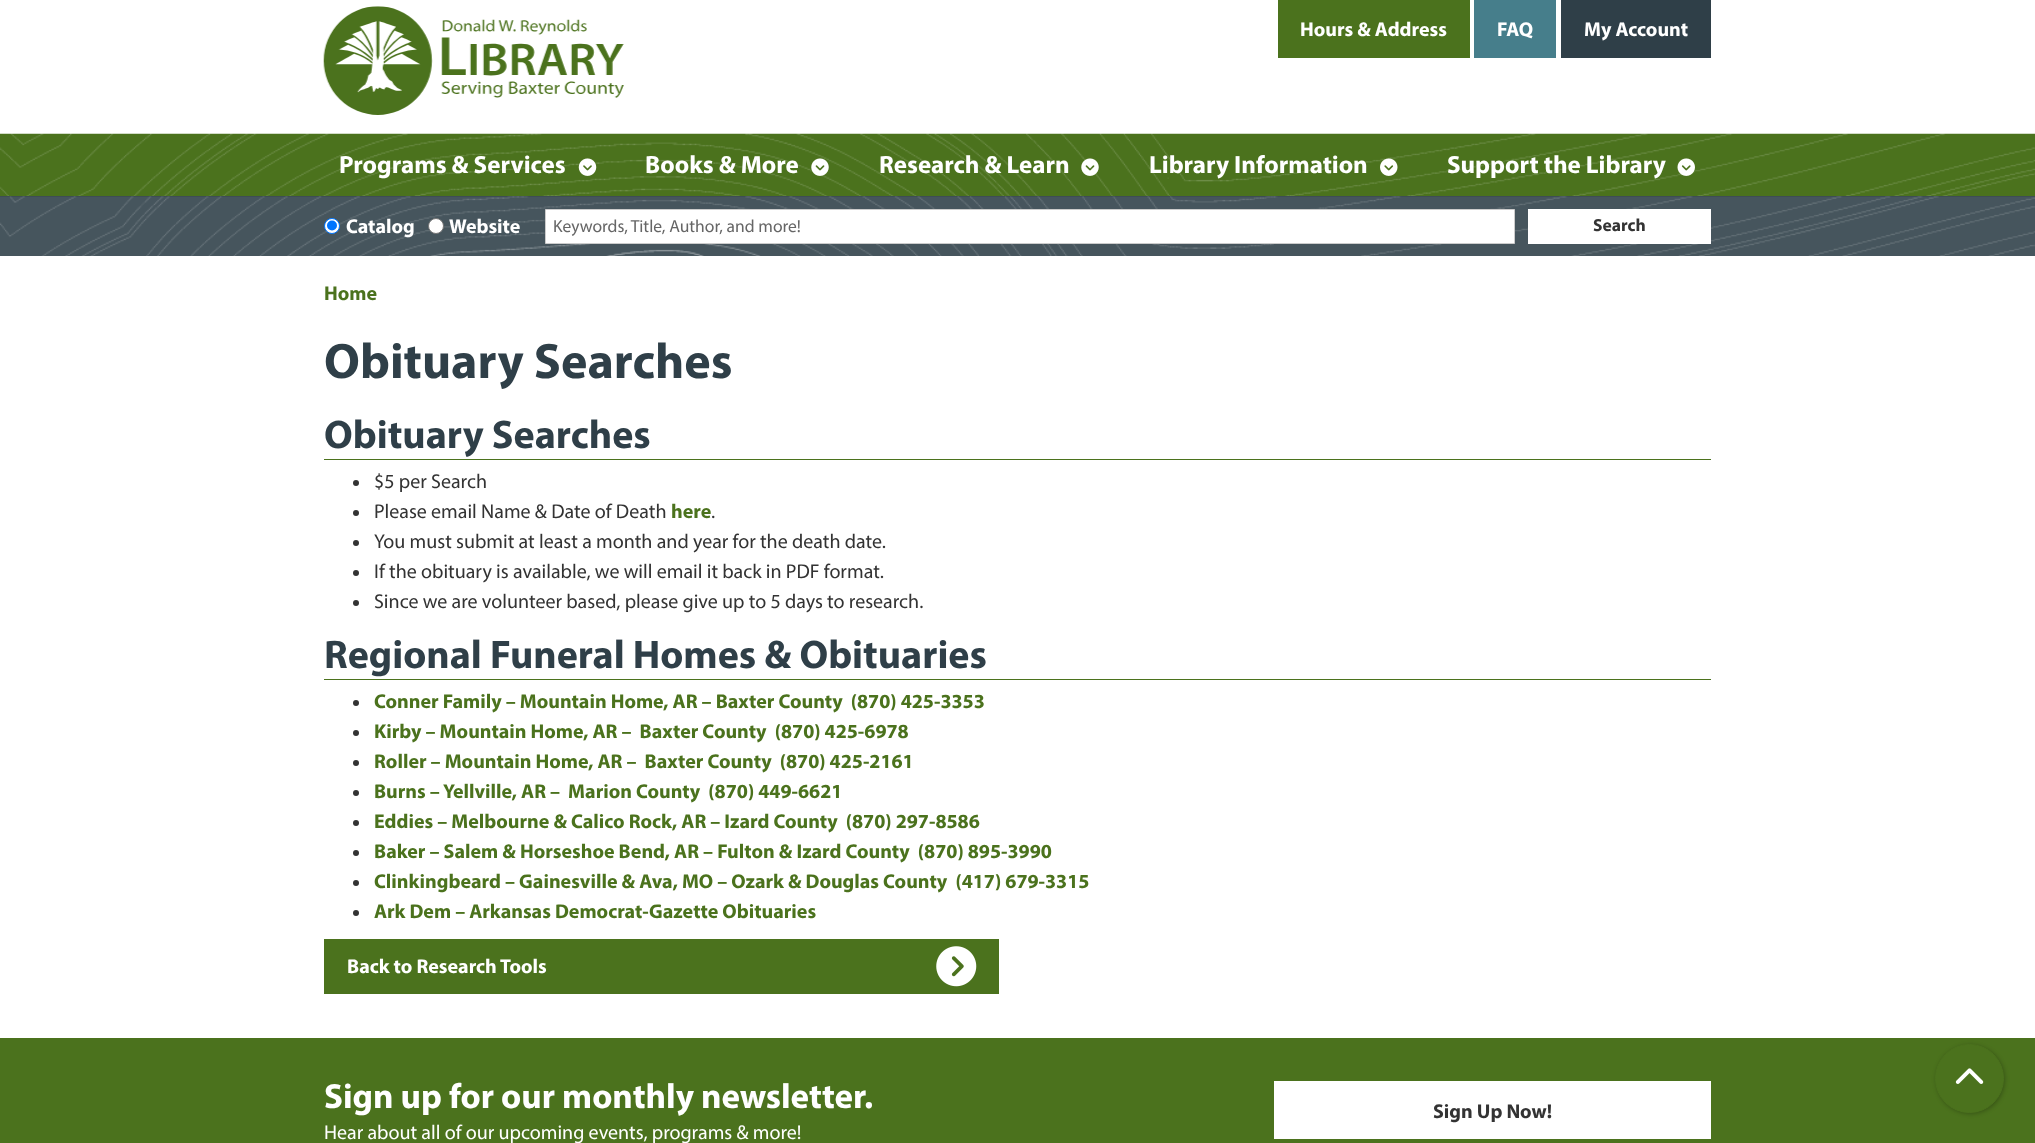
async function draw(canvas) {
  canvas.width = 2035
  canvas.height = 1143
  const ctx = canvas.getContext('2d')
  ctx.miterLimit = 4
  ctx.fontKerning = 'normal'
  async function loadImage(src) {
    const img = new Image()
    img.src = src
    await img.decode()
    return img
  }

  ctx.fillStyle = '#fff'
  ctx.fillRect(0, 0, 2035, 1143)
  ctx.drawImage(await loadImage('image0.png'), 323, 6, 301, 109)
  ctx.fillStyle = '#4b721d'
  ctx.fillRect(1278, 0, 192, 58)
  ctx.font = 'bold 20px Myriad'
  ctx.fillStyle = '#fff'
  ctx.fillText('Hours & Address', 1300, 36)
  ctx.fillStyle = '#467e8b'
  ctx.fillRect(1474, 0, 82, 58)
  ctx.fillStyle = '#fff'
  ctx.fillText('FAQ', 1497, 36)
  ctx.fillStyle = '#2f3f48'
  ctx.fillRect(1561, 0, 150, 58)
  ctx.fillStyle = '#fff'
  ctx.fillText('My Account', 1584, 36)
  ctx.drawImage(await loadImage('image1.png'), 0, 133, 2035, 63)
  ctx.font = 'bold 25px Myriad'
  ctx.fillText('Programs & Services', 339, 173)
  ctx.drawImage(await loadImage('image2.png'), 578, 158, 19, 18)
  ctx.fillText('Books & More', 645, 173)
  ctx.drawImage(await loadImage('image3.png'), 811, 158, 18, 18)
  ctx.fillText('Research & Learn', 879, 173)
  ctx.drawImage(await loadImage('image4.png'), 1081, 158, 18, 18)
  ctx.fillText('Library Information', 1149, 173)
  ctx.drawImage(await loadImage('image5.png'), 1380, 158, 18, 18)
  ctx.fillText('Support the Library', 1447, 173)
  ctx.drawImage(await loadImage('image6.png'), 1677, 158, 18, 18)
  ctx.fillStyle = '#2f3f48'
  ctx.fillRect(0, 196, 2035, 1)
  ctx.drawImage(await loadImage('image7.png'), 0, 196, 2035, 60)
  ctx.fillStyle = '#fff'
  ctx.beginPath()
  ctx.arc(332, 226, 7.5, 0, 2 * Math.PI)
  ctx.fill()
  ctx.strokeStyle = '#0075ff'
  ctx.stroke()
  ctx.fillStyle = '#0075ff'
  ctx.beginPath()
  ctx.arc(332, 225.5, 5, 0, 2 * Math.PI)
  ctx.fill()
  ctx.font = 'bold 20px Myriad'
  ctx.fillStyle = '#fff'
  ctx.fillText('Catalog', 346, 233)
  ctx.beginPath()
  ctx.arc(436, 226, 7.5, 0, 2 * Math.PI)
  ctx.fill()
  ctx.strokeStyle = '#767676'
  ctx.stroke()
  ctx.fillText('Website', 449, 233)
  ctx.beginPath()
  ctx.rect(545.5, 209.5, 969, 34)
  ctx.fill()
  ctx.strokeStyle = '#ccc'
  ctx.stroke()
  ctx.font = '17.5px Myriad'
  ctx.fillStyle = '#666'
  ctx.fillText('Keywords, Title, Author, and more!', 553, 232)
  ctx.fillStyle = '#fff'
  ctx.fillRect(1528, 209, 183, 35)
  ctx.font = 'bold 17.5px Myriad'
  ctx.fillStyle = '#333'
  ctx.fillText('Search', 1593, 231)
  ctx.font = 'bold 20px Myriad'
  ctx.fillStyle = '#4b721d'
  ctx.fillText('Home', 324, 300)
  ctx.font = 'bold 50px Myriad'
  ctx.fillStyle = '#2f3f48'
  ctx.fillText('Obituary Searches', 324, 378)
  ctx.fillStyle = '#4b721d'
  ctx.fillRect(324, 459, 1387, 1)
  ctx.font = 'bold 40px Myriad'
  ctx.fillStyle = '#2f3f48'
  ctx.fillText('Obituary Searches', 324, 448)
  ctx.fillStyle = '#333'
  ctx.beginPath()
  ctx.arc(356, 483, 3, 0, 2 * Math.PI)
  ctx.fill()
  ctx.font = '20px Myriad'
  ctx.fillText('$5 per Search', 374, 488)
  ctx.beginPath()
  ctx.arc(356, 513, 3, 0, 2 * Math.PI)
  ctx.fill()
  ctx.fillText('Please email Name & Date of Death', 374, 518)
  ctx.font = 'bold 20px Myriad'
  ctx.fillStyle = '#4b721d'
  ctx.fillText('here', 671, 518)
  ctx.font = '20px Myriad'
  ctx.fillStyle = '#333'
  ctx.fillText('.', 711, 518)
  ctx.beginPath()
  ctx.arc(356, 543, 3, 0, 2 * Math.PI)
  ctx.fill()
  ctx.fillText('You must submit at least a month and year for the death date.', 374, 548)
  ctx.beginPath()
  ctx.arc(356, 573, 3, 0, 2 * Math.PI)
  ctx.fill()
  ctx.fillText('If the obituary is available, we will email it back in PDF format.', 374, 578)
  ctx.beginPath()
  ctx.arc(356, 603, 3, 0, 2 * Math.PI)
  ctx.fill()
  ctx.fillText('Since we are volunteer based, please give up to 5 days to research.', 374, 608)
  ctx.fillStyle = '#4b721d'
  ctx.fillRect(324, 679, 1387, 1)
  ctx.font = 'bold 40px Myriad'
  ctx.fillStyle = '#2f3f48'
  ctx.fillText('Regional Funeral Homes & Obituaries', 324, 668)
  ctx.fillStyle = '#333'
  ctx.beginPath()
  ctx.arc(356, 703, 3, 0, 2 * Math.PI)
  ctx.fill()
  ctx.font = 'bold 20px Myriad'
  ctx.fillStyle = '#4b721d'
  ctx.fillText('Conner Family – Mountain Home, AR – Baxter County  (870) 425-3353', 374, 708)
  ctx.fillStyle = '#333'
  ctx.beginPath()
  ctx.arc(356, 733, 3, 0, 2 * Math.PI)
  ctx.fill()
  ctx.fillStyle = '#4b721d'
  ctx.fillText('Kirby – Mountain Home, AR –  Baxter County  (870) 425-6978', 374, 738)
  ctx.fillStyle = '#333'
  ctx.beginPath()
  ctx.arc(356, 763, 3, 0, 2 * Math.PI)
  ctx.fill()
  ctx.fillStyle = '#4b721d'
  ctx.fillText('Roller – Mountain Home, AR –  Baxter County  (870) 425-2161', 374, 768)
  ctx.fillStyle = '#333'
  ctx.beginPath()
  ctx.arc(356, 793, 3, 0, 2 * Math.PI)
  ctx.fill()
  ctx.fillStyle = '#4b721d'
  ctx.fillText('Burns – Yellville, AR –  Marion County  (870) 449-6621', 374, 798)
  ctx.fillStyle = '#333'
  ctx.beginPath()
  ctx.arc(356, 823, 3, 0, 2 * Math.PI)
  ctx.fill()
  ctx.fillStyle = '#4b721d'
  ctx.fillText('Eddies – Melbourne & Calico Rock, AR – Izard County  (870) 297-8586', 374, 828)
  ctx.fillStyle = '#333'
  ctx.beginPath()
  ctx.arc(356, 853, 3, 0, 2 * Math.PI)
  ctx.fill()
  ctx.fillStyle = '#4b721d'
  ctx.fillText('Baker – Salem & Horseshoe Bend, AR – Fulton & Izard County  (870) 895-3990', 374, 858)
  ctx.fillStyle = '#333'
  ctx.beginPath()
  ctx.arc(356, 883, 3, 0, 2 * Math.PI)
  ctx.fill()
  ctx.fillStyle = '#4b721d'
  ctx.fillText('Clinkingbeard – Gainesville & Ava, MO – Ozark & Douglas County  (417) 679-3315', 374, 888)
  ctx.fillStyle = '#333'
  ctx.beginPath()
  ctx.arc(356, 913, 3, 0, 2 * Math.PI)
  ctx.fill()
  ctx.fillStyle = '#4b721d'
  ctx.fillText('Ark Dem – Arkansas Democrat-Gazette Obituaries', 374, 918)
  ctx.fillRect(324, 939, 675, 55)
  ctx.fillStyle = '#fff'
  ctx.fillText('Back to Research Tools', 347, 973)
  ctx.drawImage(await loadImage('image8.png'), 936, 946, 41, 41)
  ctx.fillStyle = '#4b721d'
  ctx.fillRect(0, 1038, 2035, 105)
  ctx.font = 'bold 35px Myriad'
  ctx.fillStyle = '#fff'
  ctx.fillText('Sign up for our monthly newsletter.', 324, 1108)
  ctx.font = '20px Myriad'
  ctx.fillText('Hear about all of our upcoming events, programs & more!', 324, 1139)
  ctx.fillRect(1274, 1081, 437, 58)
  ctx.font = 'bold 20px Myriad'
  ctx.fillStyle = '#333'
  ctx.fillText('Sign Up Now!', 1433, 1118)
  ctx.fillStyle = '#00000040'
  ctx.filter = 'blur(2px)'
  ctx.beginPath()
  ctx.roundRect(1936, 1045, 69, 69, 34.5)
  ctx.fill()
  ctx.filter = 'none'
  ctx.fillStyle = '#4b721d'
  ctx.beginPath()
  ctx.arc(1969.5, 1078.5, 34, 0, 2 * Math.PI)
  ctx.fill()
  ctx.strokeStyle = '#4b721d'
  ctx.stroke()
  ctx.drawImage(await loadImage('image9.png'), 1955, 1068, 29, 16)
}

draw(document.querySelector('canvas'))
